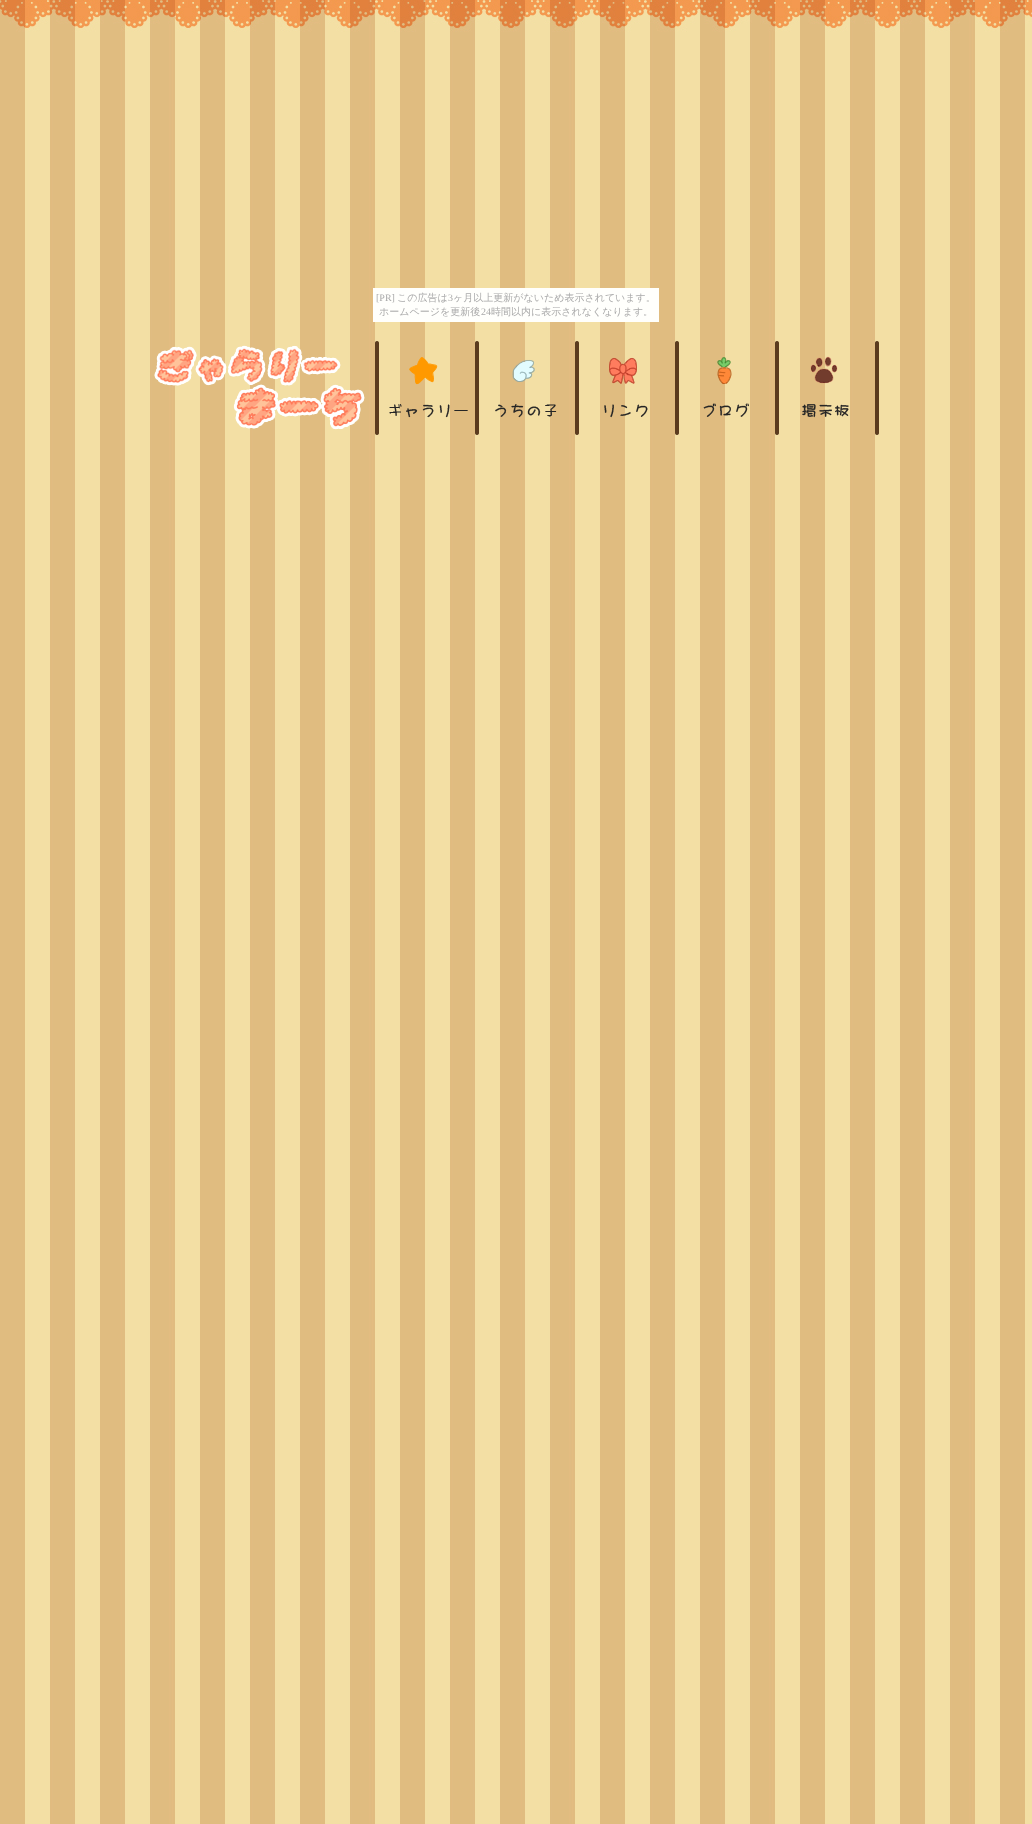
async function draw(canvas) {
  canvas.width = 1032
  canvas.height = 1824
  const ctx = canvas.getContext('2d')
  ctx.miterLimit = 4
  ctx.fontKerning = 'normal'
  async function loadImage(src) {
    const img = new Image()
    img.src = src
    await img.decode()
    return img
  }

  ctx.fillStyle = '#fff'
  ctx.fillRect(0, 0, 1032, 1824)
  ctx.drawImage(await loadImage('image0.png'), 0, 0, 1032, 1824)
  ctx.fillStyle = '#fffffc'
  ctx.fillRect(373, 288, 286, 34)
  ctx.font = '10px Liberation Serif'
  ctx.fillStyle = '#aaa'
  ctx.fillText('[PR]', 376, 301)
  ctx.font = '500 10px WenQuanYi Zen Hei'
  ctx.fillText('この広告は', 397, 301)
  ctx.font = '10px Liberation Serif'
  ctx.fillText('3', 448, 301)
  ctx.font = '500 10px WenQuanYi Zen Hei'
  ctx.fillText('ヶ月以上更新がないため表示されています。', 453, 301)
  ctx.fillText('ホームページを更新後', 379, 315)
  ctx.font = '10px Liberation Serif'
  ctx.fillText('24', 481, 315)
  ctx.font = '500 10px WenQuanYi Zen Hei'
  ctx.fillText('時間以内に表示されなくなります。', 491, 315)
  ctx.drawImage(await loadImage('image1.png'), 154, 341, 225, 94)
  ctx.drawImage(await loadImage('image2.png'), 389, 341, 90, 94)
  ctx.drawImage(await loadImage('image3.png'), 495, 341, 84, 94)
  ctx.drawImage(await loadImage('image4.png'), 604, 341, 75, 94)
  ctx.drawImage(await loadImage('image5.png'), 703, 341, 76, 94)
  ctx.drawImage(await loadImage('image6.png'), 802, 341, 77, 94)
}

draw(document.querySelector('canvas'))
